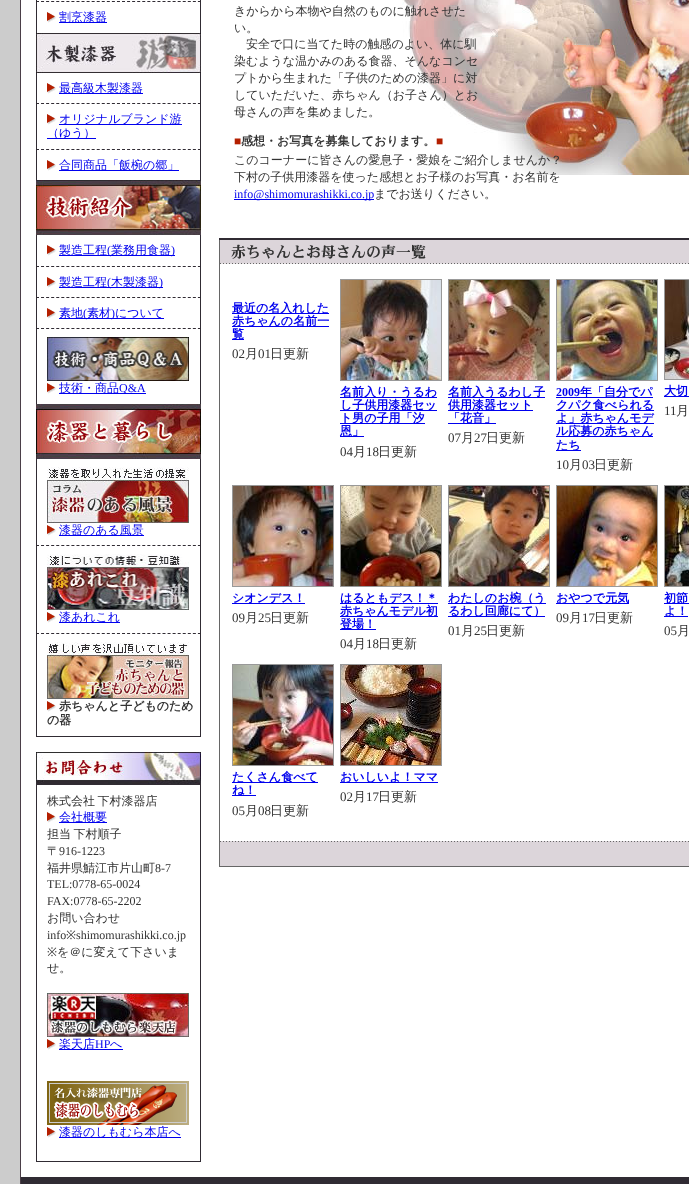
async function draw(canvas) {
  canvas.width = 689
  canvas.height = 1184
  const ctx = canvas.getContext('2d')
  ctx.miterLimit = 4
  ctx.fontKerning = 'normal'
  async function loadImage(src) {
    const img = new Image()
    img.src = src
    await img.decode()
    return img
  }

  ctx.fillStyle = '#ccc'
  ctx.fillRect(0, 0, 689, 1184)
  ctx.fillStyle = '#fff'
  ctx.fillRect(21, 0, 668, 1177)
  ctx.fillStyle = '#4a3e47'
  ctx.fillRect(20, 0, 1, 1184)
  ctx.fillStyle = '#302b33'
  ctx.fillRect(36, 736, 165, 1)
  ctx.fillRect(200, 0, 1, 33)
  ctx.beginPath()
  ctx.moveTo(36, 1.5)
  ctx.lineTo(201, 1.5)
  ctx.strokeStyle = '#302b33'
  ctx.setLineDash([3, 2.06])
  ctx.stroke()
  ctx.fillRect(36, 0, 1, 33)
  ctx.drawImage(await loadImage('image0.png'), 47, 12, 9, 11)
  ctx.fillStyle = '#00e'
  ctx.fillRect(59, 22, 48, 1)
  ctx.font = '500 12px WenQuanYi Zen Hei'
  ctx.fillText('割烹漆器', 59, 21)
  ctx.drawImage(await loadImage('image1.png'), 36, 33, 165, 40)
  ctx.fillStyle = '#302b33'
  ctx.fillRect(200, 73, 1, 107)
  ctx.beginPath()
  ctx.moveTo(36, 103.5)
  ctx.lineTo(201, 103.5)
  ctx.stroke()
  ctx.fillRect(36, 73, 1, 31)
  ctx.drawImage(await loadImage('image0.png'), 47, 83, 9, 11)
  ctx.fillStyle = '#00e'
  ctx.fillRect(59, 93, 84, 1)
  ctx.fillText('最高級木製漆器', 59, 92)
  ctx.beginPath()
  ctx.moveTo(36, 149.5)
  ctx.lineTo(201, 149.5)
  ctx.stroke()
  ctx.fillStyle = '#302b33'
  ctx.fillRect(36, 104, 1, 76)
  ctx.drawImage(await loadImage('image0.png'), 47, 114, 9, 11)
  ctx.fillStyle = '#00e'
  ctx.fillRect(59, 124, 123, 1)
  ctx.fillText('オリジナルブランド游', 59, 123)
  ctx.fillRect(47, 138, 49, 1)
  ctx.fillText('（ゆう）', 47, 137)
  ctx.drawImage(await loadImage('image0.png'), 47, 160, 9, 11)
  ctx.fillRect(59, 170, 120, 1)
  ctx.fillText('合同商品「飯椀の郷」', 59, 169)
  ctx.drawImage(await loadImage('image2.png'), 36, 180, 165, 55)
  ctx.fillStyle = '#302b33'
  ctx.fillRect(200, 235, 1, 169)
  ctx.beginPath()
  ctx.moveTo(36, 266.5)
  ctx.lineTo(201, 266.5)
  ctx.stroke()
  ctx.fillRect(36, 235, 1, 32)
  ctx.drawImage(await loadImage('image0.png'), 47, 245, 9, 11)
  ctx.fillStyle = '#00e'
  ctx.fillRect(59, 255, 116, 1)
  ctx.fillText('製造工程', 59, 254)
  ctx.font = '12px Liberation Serif'
  ctx.fillText('(', 107, 254)
  ctx.font = '500 12px WenQuanYi Zen Hei'
  ctx.fillText('業務用食器', 111, 254)
  ctx.font = '12px Liberation Serif'
  ctx.fillText(')', 171, 254)
  ctx.beginPath()
  ctx.moveTo(36, 297.5)
  ctx.lineTo(201, 297.5)
  ctx.stroke()
  ctx.fillStyle = '#302b33'
  ctx.fillRect(36, 267, 1, 31)
  ctx.drawImage(await loadImage('image0.png'), 47, 277, 9, 11)
  ctx.fillStyle = '#00e'
  ctx.fillRect(59, 287, 104, 1)
  ctx.font = '500 12px WenQuanYi Zen Hei'
  ctx.fillText('製造工程', 59, 286)
  ctx.font = '12px Liberation Serif'
  ctx.fillText('(', 107, 286)
  ctx.font = '500 12px WenQuanYi Zen Hei'
  ctx.fillText('木製漆器', 111, 286)
  ctx.font = '12px Liberation Serif'
  ctx.fillText(')', 159, 286)
  ctx.beginPath()
  ctx.moveTo(36, 328.5)
  ctx.lineTo(201, 328.5)
  ctx.stroke()
  ctx.fillStyle = '#302b33'
  ctx.fillRect(36, 298, 1, 106)
  ctx.drawImage(await loadImage('image0.png'), 47, 308, 9, 11)
  ctx.fillStyle = '#00e'
  ctx.fillRect(59, 318, 105, 1)
  ctx.font = '500 12px WenQuanYi Zen Hei'
  ctx.fillText('素地', 59, 317)
  ctx.font = '12px Liberation Serif'
  ctx.fillText('(', 83, 317)
  ctx.font = '500 12px WenQuanYi Zen Hei'
  ctx.fillText('素材', 87, 317)
  ctx.font = '12px Liberation Serif'
  ctx.fillText(')', 111, 317)
  ctx.font = '500 12px WenQuanYi Zen Hei'
  ctx.fillText('について', 115, 317)
  ctx.drawImage(await loadImage('image3.png'), 47, 337, 142, 44)
  ctx.drawImage(await loadImage('image0.png'), 47, 383, 9, 11)
  ctx.fillRect(59, 393, 87, 1)
  ctx.fillText('技術・商品', 59, 392)
  ctx.font = '12px Liberation Serif'
  ctx.fillText('Q&A', 119, 392)
  ctx.drawImage(await loadImage('image4.png'), 36, 404, 165, 55)
  ctx.fillStyle = '#302b33'
  ctx.fillRect(200, 459, 1, 277)
  ctx.beginPath()
  ctx.moveTo(36, 545.5)
  ctx.lineTo(201, 545.5)
  ctx.stroke()
  ctx.fillRect(36, 459, 1, 87)
  ctx.drawImage(await loadImage('image5.png'), 47, 467, 142, 56)
  ctx.drawImage(await loadImage('image0.png'), 47, 525, 9, 11)
  ctx.fillStyle = '#00e'
  ctx.fillRect(59, 535, 85, 1)
  ctx.font = '500 12px WenQuanYi Zen Hei'
  ctx.fillText('漆器のある風景', 59, 534)
  ctx.beginPath()
  ctx.moveTo(36, 633.5)
  ctx.lineTo(201, 633.5)
  ctx.stroke()
  ctx.fillStyle = '#302b33'
  ctx.fillRect(36, 546, 1, 190)
  ctx.drawImage(await loadImage('image6.png'), 47, 554, 142, 56)
  ctx.drawImage(await loadImage('image0.png'), 47, 612, 9, 11)
  ctx.fillStyle = '#00e'
  ctx.fillRect(59, 622, 61, 1)
  ctx.fillText('漆あれこれ', 59, 621)
  ctx.drawImage(await loadImage('image7.png'), 47, 642, 142, 57)
  ctx.drawImage(await loadImage('image0.png'), 47, 701, 9, 11)
  ctx.font = 'bold 12px WenQuanYi Zen Hei'
  ctx.fillStyle = '#333'
  ctx.fillText('赤ちゃんと子どものため', 59, 710)
  ctx.fillText('の器', 47, 724)
  ctx.fillStyle = '#302b33'
  ctx.fillRect(36, 1161, 165, 1)
  ctx.drawImage(await loadImage('image8.png'), 36, 752, 165, 33)
  ctx.fillRect(200, 785, 1, 376)
  ctx.fillRect(36, 785, 1, 376)
  ctx.wordSpacing = '-1px'
  ctx.font = '500 12px WenQuanYi Zen Hei'
  ctx.fillStyle = '#333'
  ctx.fillText('株式会社 下村漆器店', 47, 805)
  ctx.drawImage(await loadImage('image0.png'), 47, 812, 9, 11)
  ctx.fillStyle = '#00e'
  ctx.fillRect(59, 822, 48, 1)
  ctx.wordSpacing = '0px'
  ctx.fillText('会社概要', 59, 821)
  ctx.wordSpacing = '-1px'
  ctx.fillStyle = '#333'
  ctx.fillText('担当 下村順子', 47, 838)
  ctx.wordSpacing = '0px'
  ctx.fillText('〒', 47, 855)
  ctx.font = '12px Liberation Serif'
  ctx.fillText('916-1223', 59, 855)
  ctx.font = '500 12px WenQuanYi Zen Hei'
  ctx.fillText('福井県鯖江市片山町', 47, 872)
  ctx.font = '12px Liberation Serif'
  ctx.fillText('8-7', 155, 872)
  ctx.fillText('TEL:0778-65-0024', 47, 888)
  ctx.fillText('FAX:0778-65-2202', 47, 905)
  ctx.font = '500 12px WenQuanYi Zen Hei'
  ctx.fillText('お問い合わせ', 47, 922)
  ctx.font = '12px Liberation Serif'
  ctx.fillText('info', 47, 939)
  ctx.font = '12px Noto Sans'
  ctx.fillText('※', 66, 939)
  ctx.font = '12px Liberation Serif'
  ctx.fillText('shimomurashikki.co.jp', 76, 939)
  ctx.font = '12px Noto Sans'
  ctx.fillText('※', 47, 956)
  ctx.font = '500 12px WenQuanYi Zen Hei'
  ctx.fillText('を＠に変えて下さいま', 57, 956)
  ctx.fillText('せ。', 47, 972)
  ctx.drawImage(await loadImage('image9.png'), 47, 993, 142, 44)
  ctx.drawImage(await loadImage('image0.png'), 47, 1039, 9, 11)
  ctx.fillStyle = '#00e'
  ctx.fillRect(59, 1049, 64, 1)
  ctx.fillText('楽天店', 59, 1048)
  ctx.font = '12px Liberation Serif'
  ctx.fillText('HP', 95, 1048)
  ctx.font = '500 12px WenQuanYi Zen Hei'
  ctx.fillText('へ', 110, 1048)
  ctx.drawImage(await loadImage('image10.png'), 47, 1081, 142, 44)
  ctx.drawImage(await loadImage('image0.png'), 47, 1127, 9, 11)
  ctx.fillRect(59, 1137, 122, 1)
  ctx.fillText('漆器のしもむら本店へ', 59, 1136)
  ctx.drawImage(await loadImage('image11.png'), 402, 0, 287, 175)
  ctx.fillStyle = '#333'
  ctx.fillText('きからから本物や自然のものに触れさせた', 234, 15)
  ctx.fillText('い。', 234, 32)
  ctx.fillText('安全で口に当てた時の触感のよい、体に馴', 246, 48)
  ctx.fillText('染むような温かみのある食器、そんなコンセ', 234, 65)
  ctx.fillText('プトから生まれた「子供のための漆器」に対', 234, 82)
  ctx.fillText('していただいた、赤ちゃん（お子さん）とお', 234, 99)
  ctx.fillText('母さんの声を集めました。', 234, 116)
  ctx.font = 'bold 12px Liberation Serif'
  ctx.fillStyle = '#b41f00'
  ctx.fillText('■', 234, 145)
  ctx.font = 'bold 12px WenQuanYi Zen Hei'
  ctx.fillStyle = '#333'
  ctx.fillText('感想・お写真を募集しております。', 241, 145)
  ctx.font = 'bold 12px Liberation Serif'
  ctx.fillStyle = '#b41f00'
  ctx.fillText('■', 436, 145)
  ctx.font = '500 12px WenQuanYi Zen Hei'
  ctx.fillStyle = '#333'
  ctx.fillText('このコーナーに皆さんの愛息子・愛娘をご紹介しませんか？', 234, 164)
  ctx.fillText('下村の子供用漆器を使った感想とお子様のお写真・お名前を', 234, 181)
  ctx.fillStyle = '#00e'
  ctx.fillRect(234, 199, 140, 1)
  ctx.font = '12px Liberation Serif'
  ctx.fillText('info@shimomurashikki.co.jp', 234, 198)
  ctx.font = '500 12px WenQuanYi Zen Hei'
  ctx.fillStyle = '#333'
  ctx.fillText('までお送りください。', 374, 198)
  ctx.drawImage(await loadImage('image12.png'), 219, 238, 470, 26)
  ctx.fillStyle = '#666'
  ctx.fillRect(219, 264, 1, 576)
  ctx.fillStyle = '#00e'
  ctx.fillRect(232, 313, 97, 1)
  ctx.font = 'bold 12px WenQuanYi Zen Hei'
  ctx.fillText('最近の名入れした', 232, 312)
  ctx.fillRect(232, 326, 97, 1)
  ctx.fillText('赤ちゃんの名前一', 232, 325)
  ctx.fillRect(232, 339, 12, 1)
  ctx.fillText('覧', 232, 338)
  ctx.font = '13px Liberation Serif'
  ctx.fillStyle = '#333'
  ctx.fillText('02', 232, 358)
  ctx.font = '500 13px WenQuanYi Zen Hei'
  ctx.fillText('月', 245, 358)
  ctx.font = '13px Liberation Serif'
  ctx.fillText('01', 258, 358)
  ctx.font = '500 13px WenQuanYi Zen Hei'
  ctx.fillText('日更新', 270, 358)
  ctx.strokeStyle = '#999'
  ctx.setLineDash([])
  ctx.strokeRect(340.5, 279.5, 101, 101)
  ctx.drawImage(await loadImage('image13.png'), 341, 280, 100, 100)
  ctx.fillStyle = '#00e'
  ctx.fillRect(340, 397, 97, 1)
  ctx.font = 'bold 12px WenQuanYi Zen Hei'
  ctx.fillText('名前入り・うるわ', 340, 396)
  ctx.fillRect(340, 410, 97, 1)
  ctx.fillText('し子供用漆器セッ', 340, 409)
  ctx.fillRect(340, 423, 85, 1)
  ctx.fillText('ト男の子用「汐', 340, 422)
  ctx.fillRect(340, 436, 24, 1)
  ctx.fillText('恩」', 340, 435)
  ctx.font = '13px Liberation Serif'
  ctx.fillStyle = '#333'
  ctx.fillText('04', 340, 456)
  ctx.font = '500 13px WenQuanYi Zen Hei'
  ctx.fillText('月', 353, 456)
  ctx.font = '13px Liberation Serif'
  ctx.fillText('18', 366, 456)
  ctx.font = '500 13px WenQuanYi Zen Hei'
  ctx.fillText('日更新', 378, 456)
  ctx.strokeRect(448.5, 279.5, 101, 101)
  ctx.drawImage(await loadImage('image14.png'), 449, 280, 100, 100)
  ctx.fillStyle = '#00e'
  ctx.fillRect(448, 397, 97, 1)
  ctx.font = 'bold 12px WenQuanYi Zen Hei'
  ctx.fillText('名前入うるわし子', 448, 396)
  ctx.fillRect(448, 410, 85, 1)
  ctx.fillText('供用漆器セット', 448, 409)
  ctx.fillRect(448, 423, 48, 1)
  ctx.fillText('「花音」', 448, 422)
  ctx.font = '13px Liberation Serif'
  ctx.fillStyle = '#333'
  ctx.fillText('07', 448, 442)
  ctx.font = '500 13px WenQuanYi Zen Hei'
  ctx.fillText('月', 461, 442)
  ctx.font = '13px Liberation Serif'
  ctx.fillText('27', 474, 442)
  ctx.font = '500 13px WenQuanYi Zen Hei'
  ctx.fillText('日更新', 486, 442)
  ctx.strokeRect(556.5, 279.5, 101, 101)
  ctx.drawImage(await loadImage('image15.png'), 557, 280, 100, 100)
  ctx.font = 'bold 12px Liberation Serif'
  ctx.fillStyle = '#00e'
  ctx.fillText('2009', 556, 396)
  ctx.fillRect(556, 397, 97, 1)
  ctx.font = 'bold 12px WenQuanYi Zen Hei'
  ctx.fillText('年「自分でパ', 580, 396)
  ctx.fillRect(556, 410, 98, 1)
  ctx.fillText('クパク食べられる', 556, 409)
  ctx.fillRect(556, 423, 98, 1)
  ctx.fillText('よ」赤ちゃんモデ', 556, 422)
  ctx.fillRect(556, 436, 97, 1)
  ctx.fillText('ル応募の赤ちゃん', 556, 435)
  ctx.fillRect(556, 450, 25, 1)
  ctx.fillText('たち', 556, 449)
  ctx.font = '13px Liberation Serif'
  ctx.fillStyle = '#333'
  ctx.fillText('10', 556, 469)
  ctx.font = '500 13px WenQuanYi Zen Hei'
  ctx.fillText('月', 569, 469)
  ctx.font = '13px Liberation Serif'
  ctx.fillText('03', 582, 469)
  ctx.font = '500 13px WenQuanYi Zen Hei'
  ctx.fillText('日更新', 594, 469)
  ctx.strokeRect(664.5, 279.5, 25, 100)
  ctx.drawImage(await loadImage('image16.png'), 665, 280, 24, 99)
  ctx.fillStyle = '#00e'
  ctx.fillRect(664, 396, 25, 1)
  ctx.font = 'bold 12px WenQuanYi Zen Hei'
  ctx.fillText('大切', 664, 395)
  ctx.font = '13px Liberation Serif'
  ctx.fillStyle = '#333'
  ctx.fillText('11', 664, 415)
  ctx.font = '500 13px WenQuanYi Zen Hei'
  ctx.fillText('月', 676, 415)
  ctx.strokeRect(232.5, 485.5, 101, 101)
  ctx.drawImage(await loadImage('image17.png'), 233, 486, 100, 100)
  ctx.fillStyle = '#00e'
  ctx.fillRect(232, 603, 73, 1)
  ctx.font = 'bold 12px WenQuanYi Zen Hei'
  ctx.fillText('シオンデス！', 232, 602)
  ctx.font = '13px Liberation Serif'
  ctx.fillStyle = '#333'
  ctx.fillText('09', 232, 622)
  ctx.font = '500 13px WenQuanYi Zen Hei'
  ctx.fillText('月', 245, 622)
  ctx.font = '13px Liberation Serif'
  ctx.fillText('25', 258, 622)
  ctx.font = '500 13px WenQuanYi Zen Hei'
  ctx.fillText('日更新', 270, 622)
  ctx.strokeRect(340.5, 485.5, 101, 101)
  ctx.drawImage(await loadImage('image18.png'), 341, 486, 100, 100)
  ctx.fillStyle = '#00e'
  ctx.fillRect(340, 603, 98, 1)
  ctx.font = 'bold 12px WenQuanYi Zen Hei'
  ctx.fillText('はるともデス！＊', 340, 602)
  ctx.fillRect(340, 616, 98, 1)
  ctx.fillText('赤ちゃんモデル初', 340, 615)
  ctx.fillRect(340, 629, 36, 1)
  ctx.fillText('登場！', 340, 628)
  ctx.font = '13px Liberation Serif'
  ctx.fillStyle = '#333'
  ctx.fillText('04', 340, 648)
  ctx.font = '500 13px WenQuanYi Zen Hei'
  ctx.fillText('月', 353, 648)
  ctx.font = '13px Liberation Serif'
  ctx.fillText('18', 366, 648)
  ctx.font = '500 13px WenQuanYi Zen Hei'
  ctx.fillText('日更新', 378, 648)
  ctx.strokeRect(448.5, 485.5, 101, 101)
  ctx.drawImage(await loadImage('image19.png'), 449, 486, 100, 100)
  ctx.fillStyle = '#00e'
  ctx.fillRect(448, 603, 98, 1)
  ctx.font = 'bold 12px WenQuanYi Zen Hei'
  ctx.fillText('わたしのお椀（う', 448, 602)
  ctx.fillRect(448, 616, 97, 1)
  ctx.fillText('るわし回廊にて）', 448, 615)
  ctx.font = '13px Liberation Serif'
  ctx.fillStyle = '#333'
  ctx.fillText('01', 448, 635)
  ctx.font = '500 13px WenQuanYi Zen Hei'
  ctx.fillText('月', 461, 635)
  ctx.font = '13px Liberation Serif'
  ctx.fillText('25', 474, 635)
  ctx.font = '500 13px WenQuanYi Zen Hei'
  ctx.fillText('日更新', 486, 635)
  ctx.strokeRect(556.5, 485.5, 101, 101)
  ctx.drawImage(await loadImage('image20.png'), 557, 486, 100, 100)
  ctx.fillStyle = '#00e'
  ctx.fillRect(556, 603, 73, 1)
  ctx.font = 'bold 12px WenQuanYi Zen Hei'
  ctx.fillText('おやつで元気', 556, 602)
  ctx.font = '13px Liberation Serif'
  ctx.fillStyle = '#333'
  ctx.fillText('09', 556, 622)
  ctx.font = '500 13px WenQuanYi Zen Hei'
  ctx.fillText('月', 569, 622)
  ctx.font = '13px Liberation Serif'
  ctx.fillText('17', 582, 622)
  ctx.font = '500 13px WenQuanYi Zen Hei'
  ctx.fillText('日更新', 594, 622)
  ctx.strokeRect(664.5, 485.5, 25, 101)
  ctx.drawImage(await loadImage('image21.png'), 665, 486, 24, 100)
  ctx.fillStyle = '#00e'
  ctx.fillRect(664, 603, 25, 1)
  ctx.font = 'bold 12px WenQuanYi Zen Hei'
  ctx.fillText('初節', 664, 602)
  ctx.fillRect(664, 616, 24, 1)
  ctx.fillText('よ！', 664, 615)
  ctx.font = '13px Liberation Serif'
  ctx.fillStyle = '#333'
  ctx.fillText('05', 664, 635)
  ctx.font = '500 13px WenQuanYi Zen Hei'
  ctx.fillText('月', 677, 635)
  ctx.strokeRect(232.5, 664.5, 101, 101)
  ctx.drawImage(await loadImage('image22.png'), 233, 665, 100, 100)
  ctx.fillStyle = '#00e'
  ctx.fillRect(232, 782, 86, 1)
  ctx.font = 'bold 12px WenQuanYi Zen Hei'
  ctx.fillText('たくさん食べて', 232, 781)
  ctx.fillRect(232, 795, 24, 1)
  ctx.fillText('ね！', 232, 794)
  ctx.font = '13px Liberation Serif'
  ctx.fillStyle = '#333'
  ctx.fillText('05', 232, 815)
  ctx.font = '500 13px WenQuanYi Zen Hei'
  ctx.fillText('月', 245, 815)
  ctx.font = '13px Liberation Serif'
  ctx.fillText('08', 258, 815)
  ctx.font = '500 13px WenQuanYi Zen Hei'
  ctx.fillText('日更新', 270, 815)
  ctx.strokeRect(340.5, 664.5, 101, 101)
  ctx.drawImage(await loadImage('image23.png'), 341, 665, 100, 100)
  ctx.fillStyle = '#00e'
  ctx.fillRect(340, 782, 98, 1)
  ctx.font = 'bold 12px WenQuanYi Zen Hei'
  ctx.fillText('おいしいよ！ママ', 340, 781)
  ctx.font = '13px Liberation Serif'
  ctx.fillStyle = '#333'
  ctx.fillText('02', 340, 801)
  ctx.font = '500 13px WenQuanYi Zen Hei'
  ctx.fillText('月', 353, 801)
  ctx.font = '13px Liberation Serif'
  ctx.fillText('17', 366, 801)
  ctx.font = '500 13px WenQuanYi Zen Hei'
  ctx.fillText('日更新', 378, 801)
  ctx.drawImage(await loadImage('image24.png'), 219, 840, 470, 27)
  ctx.fillStyle = '#302b33'
  ctx.fillRect(21, 1177, 668, 7)
}

draw(document.querySelector('canvas'))
